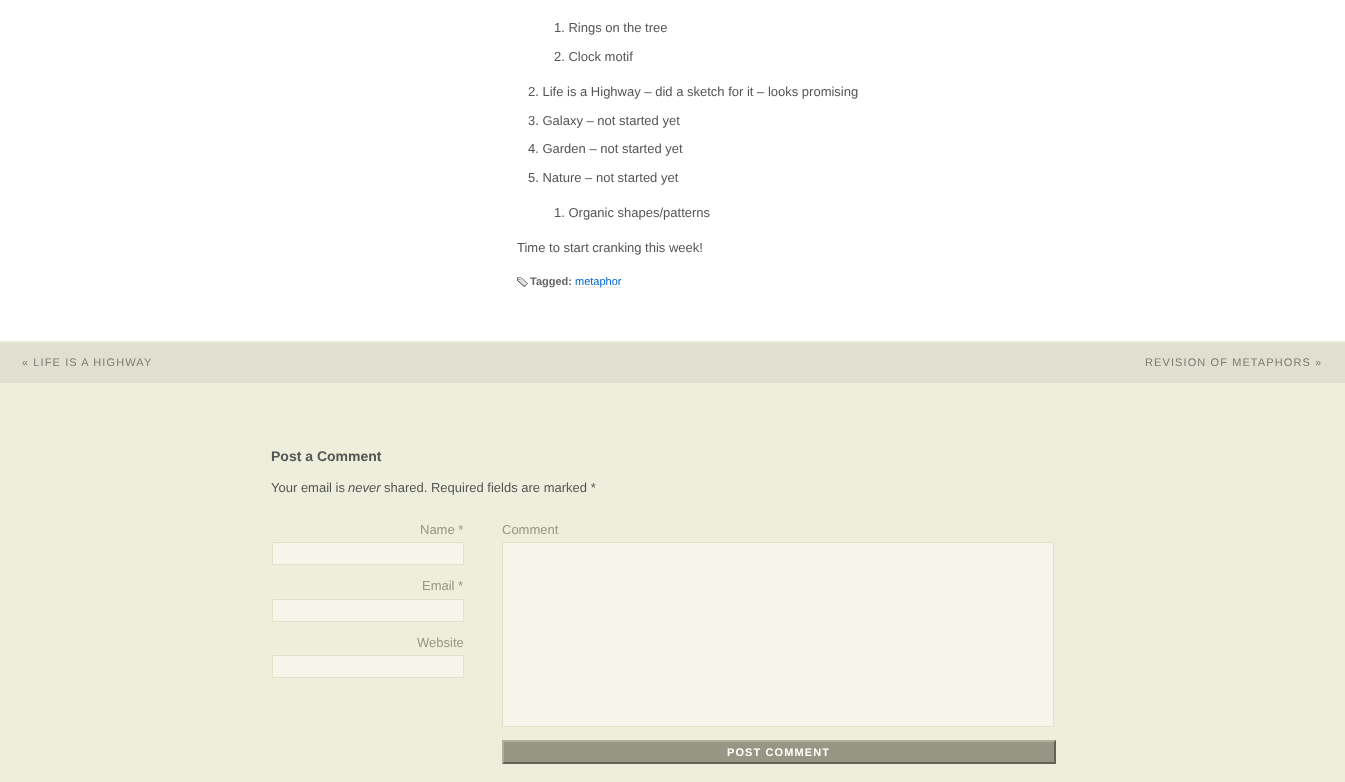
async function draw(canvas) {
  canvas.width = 1345
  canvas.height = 782
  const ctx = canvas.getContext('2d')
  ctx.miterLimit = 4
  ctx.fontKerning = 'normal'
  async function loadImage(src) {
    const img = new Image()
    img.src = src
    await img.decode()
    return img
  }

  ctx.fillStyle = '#fff'
  ctx.fillRect(0, 0, 1345, 782)
  ctx.font = '13px Liberation Sans'
  ctx.fillStyle = '#555'
  ctx.fillText('1. Rings on the tree', 554, 32)
  ctx.fillText('2. Clock motif', 554, 61)
  ctx.fillText('2. Life is a Highway – did a sketch for it – looks promising', 528, 96)
  ctx.fillText('3. Galaxy – not started yet', 528, 125)
  ctx.fillText('4. Garden – not started yet', 528, 153)
  ctx.fillText('5. Nature – not started yet', 528, 182)
  ctx.fillText('1. Organic shapes/patterns', 554, 217)
  ctx.fillText('Time to start cranking this week!', 517, 252)
  ctx.drawImage(await loadImage('image0.png'), 517, 277, 11, 10)
  ctx.font = 'bold 11px Liberation Sans'
  ctx.fillStyle = '#666'
  ctx.fillText('Tagged:', 530, 285)
  ctx.fillStyle = '#eee'
  ctx.fillRect(575, 287, 46, 1)
  ctx.font = '11px Liberation Sans'
  ctx.fillStyle = '#06c'
  ctx.fillText('metaphor', 575, 285)
  ctx.fillStyle = '#e1e0d0'
  ctx.fillRect(0, 343, 1345, 40)
  ctx.fillStyle = '#ebeade'
  ctx.fillRect(0, 341, 1345, 2)
  ctx.letterSpacing = '1.1px'
  ctx.fillStyle = '#7a7a71'
  ctx.fillText('« LIFE IS A HIGHWAY', 22, 366)
  ctx.fillText('REVISION OF METAPHORS »', 1145, 366)
  ctx.fillStyle = '#eeeedc'
  ctx.fillRect(0, 383, 1345, 399)
  ctx.letterSpacing = '0px'
  ctx.font = 'bold 14px Liberation Sans'
  ctx.fillStyle = '#555'
  ctx.fillText('Post a Comment', 271, 461)
  ctx.font = '13px Liberation Sans'
  ctx.fillText('Your email is', 271, 492)
  ctx.font = 'italic 13px Liberation Sans'
  ctx.fillText('never', 348, 492)
  ctx.font = '13px Liberation Sans'
  ctx.fillText('shared. Required fields are marked *', 384, 492)
  ctx.fillStyle = '#979584'
  ctx.fillText('Name *', 420, 534)
  ctx.fillStyle = '#f5f5ec'
  ctx.beginPath()
  ctx.rect(272.5, 542.5, 191, 22)
  ctx.fill()
  ctx.strokeStyle = '#e3e2c9'
  ctx.stroke()
  ctx.fillStyle = '#979584'
  ctx.fillText('Email *', 422, 590)
  ctx.fillStyle = '#f5f5ec'
  ctx.beginPath()
  ctx.rect(272.5, 599.5, 191, 22)
  ctx.fill()
  ctx.stroke()
  ctx.fillStyle = '#979584'
  ctx.fillText('Website', 417, 647)
  ctx.fillStyle = '#f5f5ec'
  ctx.beginPath()
  ctx.rect(272.5, 655.5, 191, 22)
  ctx.fill()
  ctx.stroke()
  ctx.fillStyle = '#979584'
  ctx.fillText('Comment', 502, 534)
  ctx.fillStyle = '#f5f5ec'
  ctx.beginPath()
  ctx.rect(502.5, 542.5, 551, 184)
  ctx.fill()
  ctx.stroke()
  ctx.fillStyle = '#979584'
  ctx.fillRect(502, 740, 554, 24)
  ctx.fillStyle = '#b0af9c'
  ctx.beginPath()
  ctx.moveTo(502, 740)
  ctx.lineTo(1056, 740)
  ctx.lineTo(1054, 742)
  ctx.lineTo(504, 742)
  ctx.closePath()
  ctx.fill()
  ctx.fillStyle = '#636257'
  ctx.beginPath()
  ctx.moveTo(1056, 740)
  ctx.lineTo(1056, 764)
  ctx.lineTo(1054, 762)
  ctx.lineTo(1054, 742)
  ctx.closePath()
  ctx.fill()
  ctx.beginPath()
  ctx.moveTo(1056, 764)
  ctx.lineTo(502, 764)
  ctx.lineTo(504, 762)
  ctx.lineTo(1054, 762)
  ctx.closePath()
  ctx.fill()
  ctx.fillStyle = '#b0af9c'
  ctx.beginPath()
  ctx.moveTo(502, 764)
  ctx.lineTo(502, 740)
  ctx.lineTo(504, 742)
  ctx.lineTo(504, 762)
  ctx.closePath()
  ctx.fill()
  ctx.letterSpacing = '1.1px'
  ctx.font = 'bold 11px Liberation Sans'
  ctx.fillStyle = '#fff'
  ctx.fillText('POST COMMENT', 727, 756)
}

draw(document.querySelector('canvas'))
